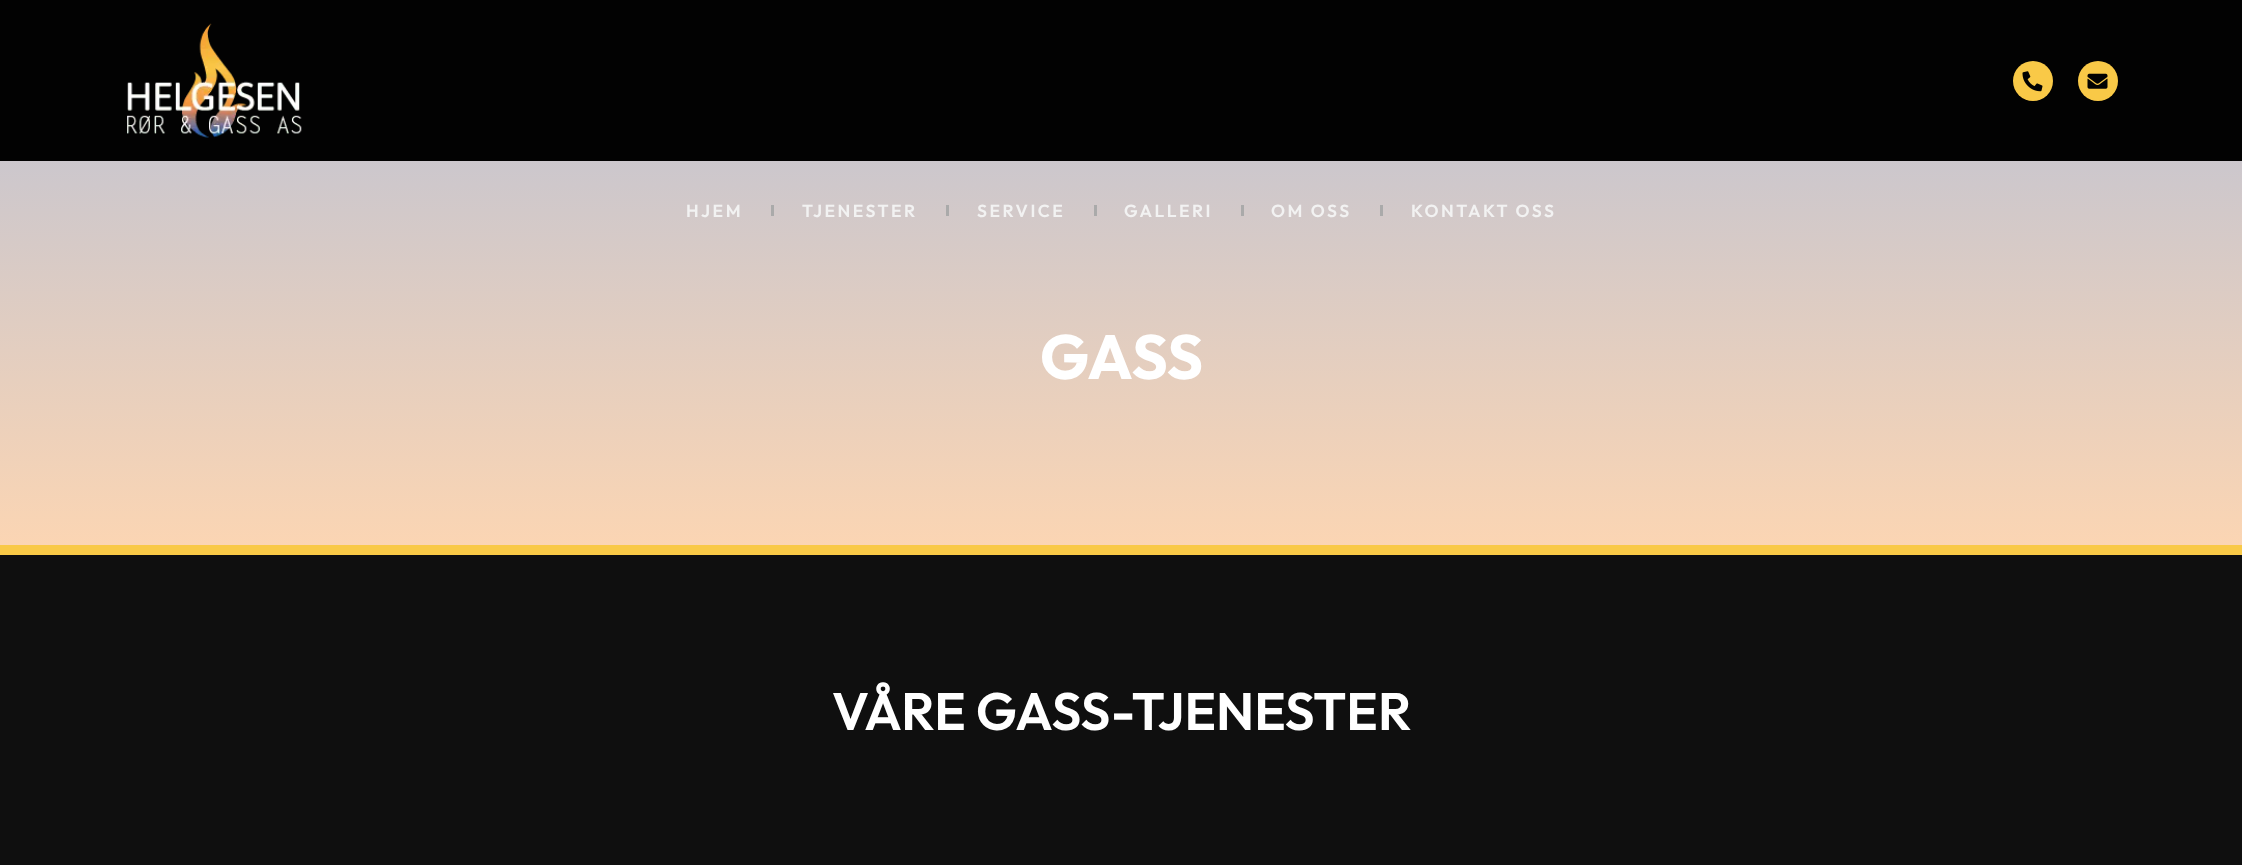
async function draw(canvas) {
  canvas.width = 2242
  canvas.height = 865
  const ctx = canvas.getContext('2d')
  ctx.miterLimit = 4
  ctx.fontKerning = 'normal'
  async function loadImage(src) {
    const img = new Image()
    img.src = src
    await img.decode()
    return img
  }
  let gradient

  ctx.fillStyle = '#fff'
  ctx.fillRect(0, 0, 2242, 865)
  ctx.fillStyle = '#020202'
  ctx.fillRect(0, 0, 2242, 161)
  ctx.drawImage(await loadImage('image0.png'), 127, 23, 175, 115)
  ctx.fillStyle = '#f9c947'
  ctx.beginPath()
  ctx.arc(2033, 81, 20, 0, 2 * Math.PI)
  ctx.fill()
  ctx.drawImage(await loadImage('image1.png'), 2022, 71, 21, 21)
  ctx.beginPath()
  ctx.arc(2098, 81, 20, 0, 2 * Math.PI)
  ctx.fill()
  ctx.drawImage(await loadImage('image2.png'), 2087, 73, 21, 16)
  gradient = ctx.createLinearGradient(1121, -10, 1121, 545)
  gradient.addColorStop(0, '#b7c1d8')
  gradient.addColorStop(1, '#fbd5b3')
  ctx.fillStyle = gradient
  ctx.fillRect(0, 161, 2242, 384)
  ctx.letterSpacing = '2.5px'
  ctx.font = '600 17.5px Outfit'
  ctx.fillStyle = '#f2f2f2'
  ctx.fillText('HJEM', 686, 217)
  ctx.fillStyle = '#aaa'
  ctx.fillRect(771, 205, 3, 11)
  ctx.fillStyle = '#f2f2f2'
  ctx.fillText('TJENESTER', 802, 217)
  ctx.fillStyle = '#aaa'
  ctx.fillRect(946, 205, 3, 11)
  ctx.fillStyle = '#f2f2f2'
  ctx.fillText('SERVICE', 977, 217)
  ctx.fillStyle = '#aaa'
  ctx.fillRect(1094, 205, 3, 11)
  ctx.fillStyle = '#f2f2f2'
  ctx.fillText('GALLERI', 1124, 217)
  ctx.fillStyle = '#aaa'
  ctx.fillRect(1241, 205, 3, 11)
  ctx.fillStyle = '#f2f2f2'
  ctx.fillText('OM OSS', 1271, 217)
  ctx.fillStyle = '#aaa'
  ctx.fillRect(1380, 205, 3, 11)
  ctx.fillStyle = '#f2f2f2'
  ctx.fillText('KONTAKT OSS', 1411, 217)
  ctx.letterSpacing = '0px'
  ctx.font = 'bold 62.5px Outfit'
  ctx.fillStyle = '#fff'
  ctx.fillText('GASS', 1040, 379)
  ctx.fillStyle = '#0f0f0f'
  ctx.fillRect(0, 555, 2242, 310)
  ctx.fillStyle = '#f9c947'
  ctx.fillRect(0, 545, 2242, 10)
  ctx.font = '600 52.5px Outfit'
  ctx.fillStyle = '#fff'
  ctx.fillText('VÅRE GASS-TJENESTER', 832, 730)
}

draw(document.querySelector('canvas'))
